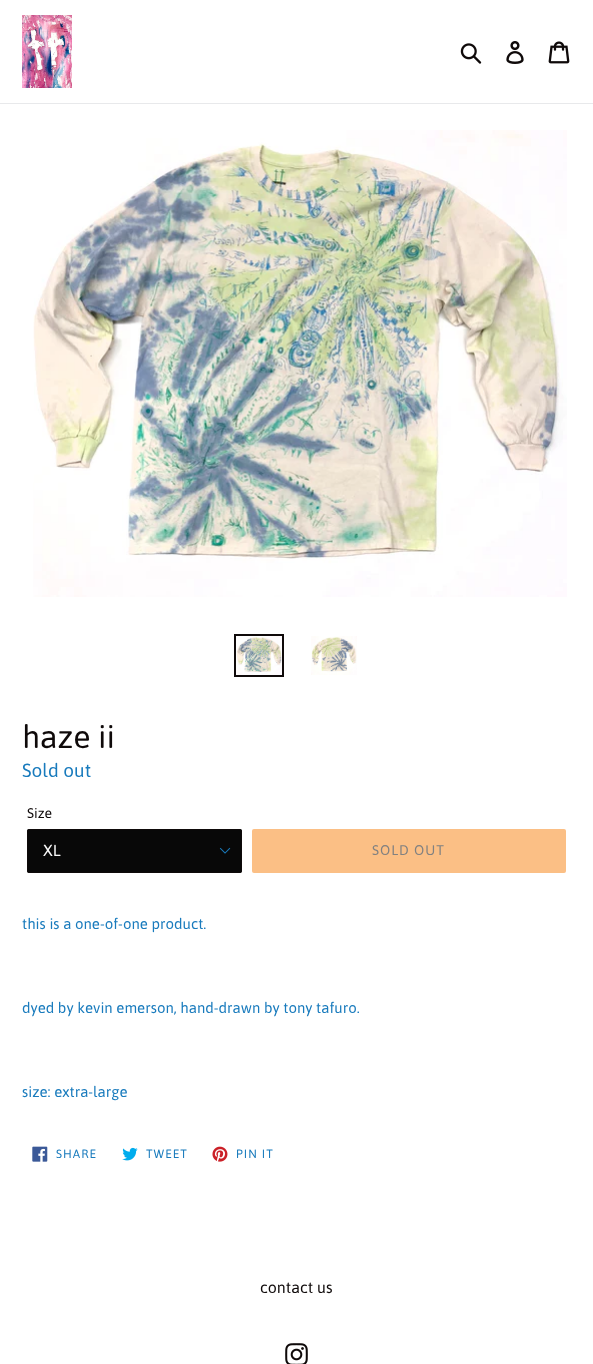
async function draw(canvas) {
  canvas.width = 593
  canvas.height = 1364
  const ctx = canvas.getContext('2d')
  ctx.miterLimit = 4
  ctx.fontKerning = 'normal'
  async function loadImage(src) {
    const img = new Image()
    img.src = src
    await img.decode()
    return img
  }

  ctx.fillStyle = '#fff'
  ctx.fillRect(0, 0, 593, 1364)
  ctx.fillStyle = '#e8e9eb'
  ctx.fillRect(0, 103, 593, 1)
  ctx.drawImage(await loadImage('image0.png'), 22, 15, 50, 73)
  ctx.drawImage(await loadImage('image1.png'), 460, 43, 22, 21)
  ctx.drawImage(await loadImage('image2.png'), 506, 41, 18, 23)
  ctx.drawImage(await loadImage('image3.png'), 548, 41, 22, 23)
  ctx.drawImage(await loadImage('image4.png'), 33, 130, 534, 467)
  ctx.strokeStyle = '#0f0a0a'
  ctx.lineWidth = 2
  ctx.strokeRect(235, 635, 48, 41)
  ctx.drawImage(await loadImage('image5.png'), 236, 636, 46, 39)
  ctx.drawImage(await loadImage('image6.png'), 311, 636, 46, 39)
  ctx.font = '32px Asap'
  ctx.fillStyle = '#0f0a0a'
  ctx.fillText('haze ii', 22, 748)
  ctx.font = '19px Asap'
  ctx.fillStyle = '#197bbd'
  ctx.fillText('Sold out', 22, 777)
  ctx.font = '14px Asap'
  ctx.fillStyle = '#0f0a0a'
  ctx.fillText('Size', 27, 818)
  ctx.fillStyle = '#080808'
  ctx.beginPath()
  ctx.roundRect(27, 829, 215, 44, 2)
  ctx.fill()
  ctx.drawImage(await loadImage('image7.png'), 219, 847, 12, 7)
  ctx.beginPath()
  ctx.roundRect(27.5, 829.5, 214, 43, 1.5)
  ctx.strokeStyle = '#0f0a0ad9'
  ctx.lineWidth = 1
  ctx.stroke()
  ctx.font = '16px Asap'
  ctx.fillStyle = '#fafafa'
  ctx.fillText('XL', 43, 856)
  ctx.fillStyle = '#fbbf85'
  ctx.beginPath()
  ctx.roundRect(252, 829, 314, 44, 2)
  ctx.fill()
  ctx.letterSpacing = '1px'
  ctx.font = '14px Asap'
  ctx.fillStyle = '#818181'
  ctx.fillText('SOLD OUT', 372, 855)
  ctx.letterSpacing = '0px'
  ctx.font = '15px Asap'
  ctx.fillStyle = '#197bbd'
  ctx.fillText('this is a one-of-one product.', 22, 929)
  ctx.fillText('dyed by kevin emerson, hand-drawn by tony tafuro.', 22, 1013)
  ctx.fillText('size: extra-large', 22, 1097)
  ctx.drawImage(await loadImage('image8.png'), 32, 1146, 16, 16)
  ctx.letterSpacing = '1px'
  ctx.font = '12px Asap'
  ctx.fillText('SHARE', 56, 1158)
  ctx.drawImage(await loadImage('image9.png'), 122, 1147, 16, 14)
  ctx.fillText('TWEET', 146, 1158)
  ctx.drawImage(await loadImage('image10.png'), 212, 1146, 16, 16)
  ctx.fillText('PIN IT', 236, 1158)
  ctx.letterSpacing = '0px'
  ctx.font = '16px Asap'
  ctx.fillStyle = '#0f0a0a'
  ctx.fillText('contact us', 260, 1293)
  ctx.drawImage(await loadImage('image11.png'), 285, 1343, 23, 21)
}

draw(document.querySelector('canvas'))
